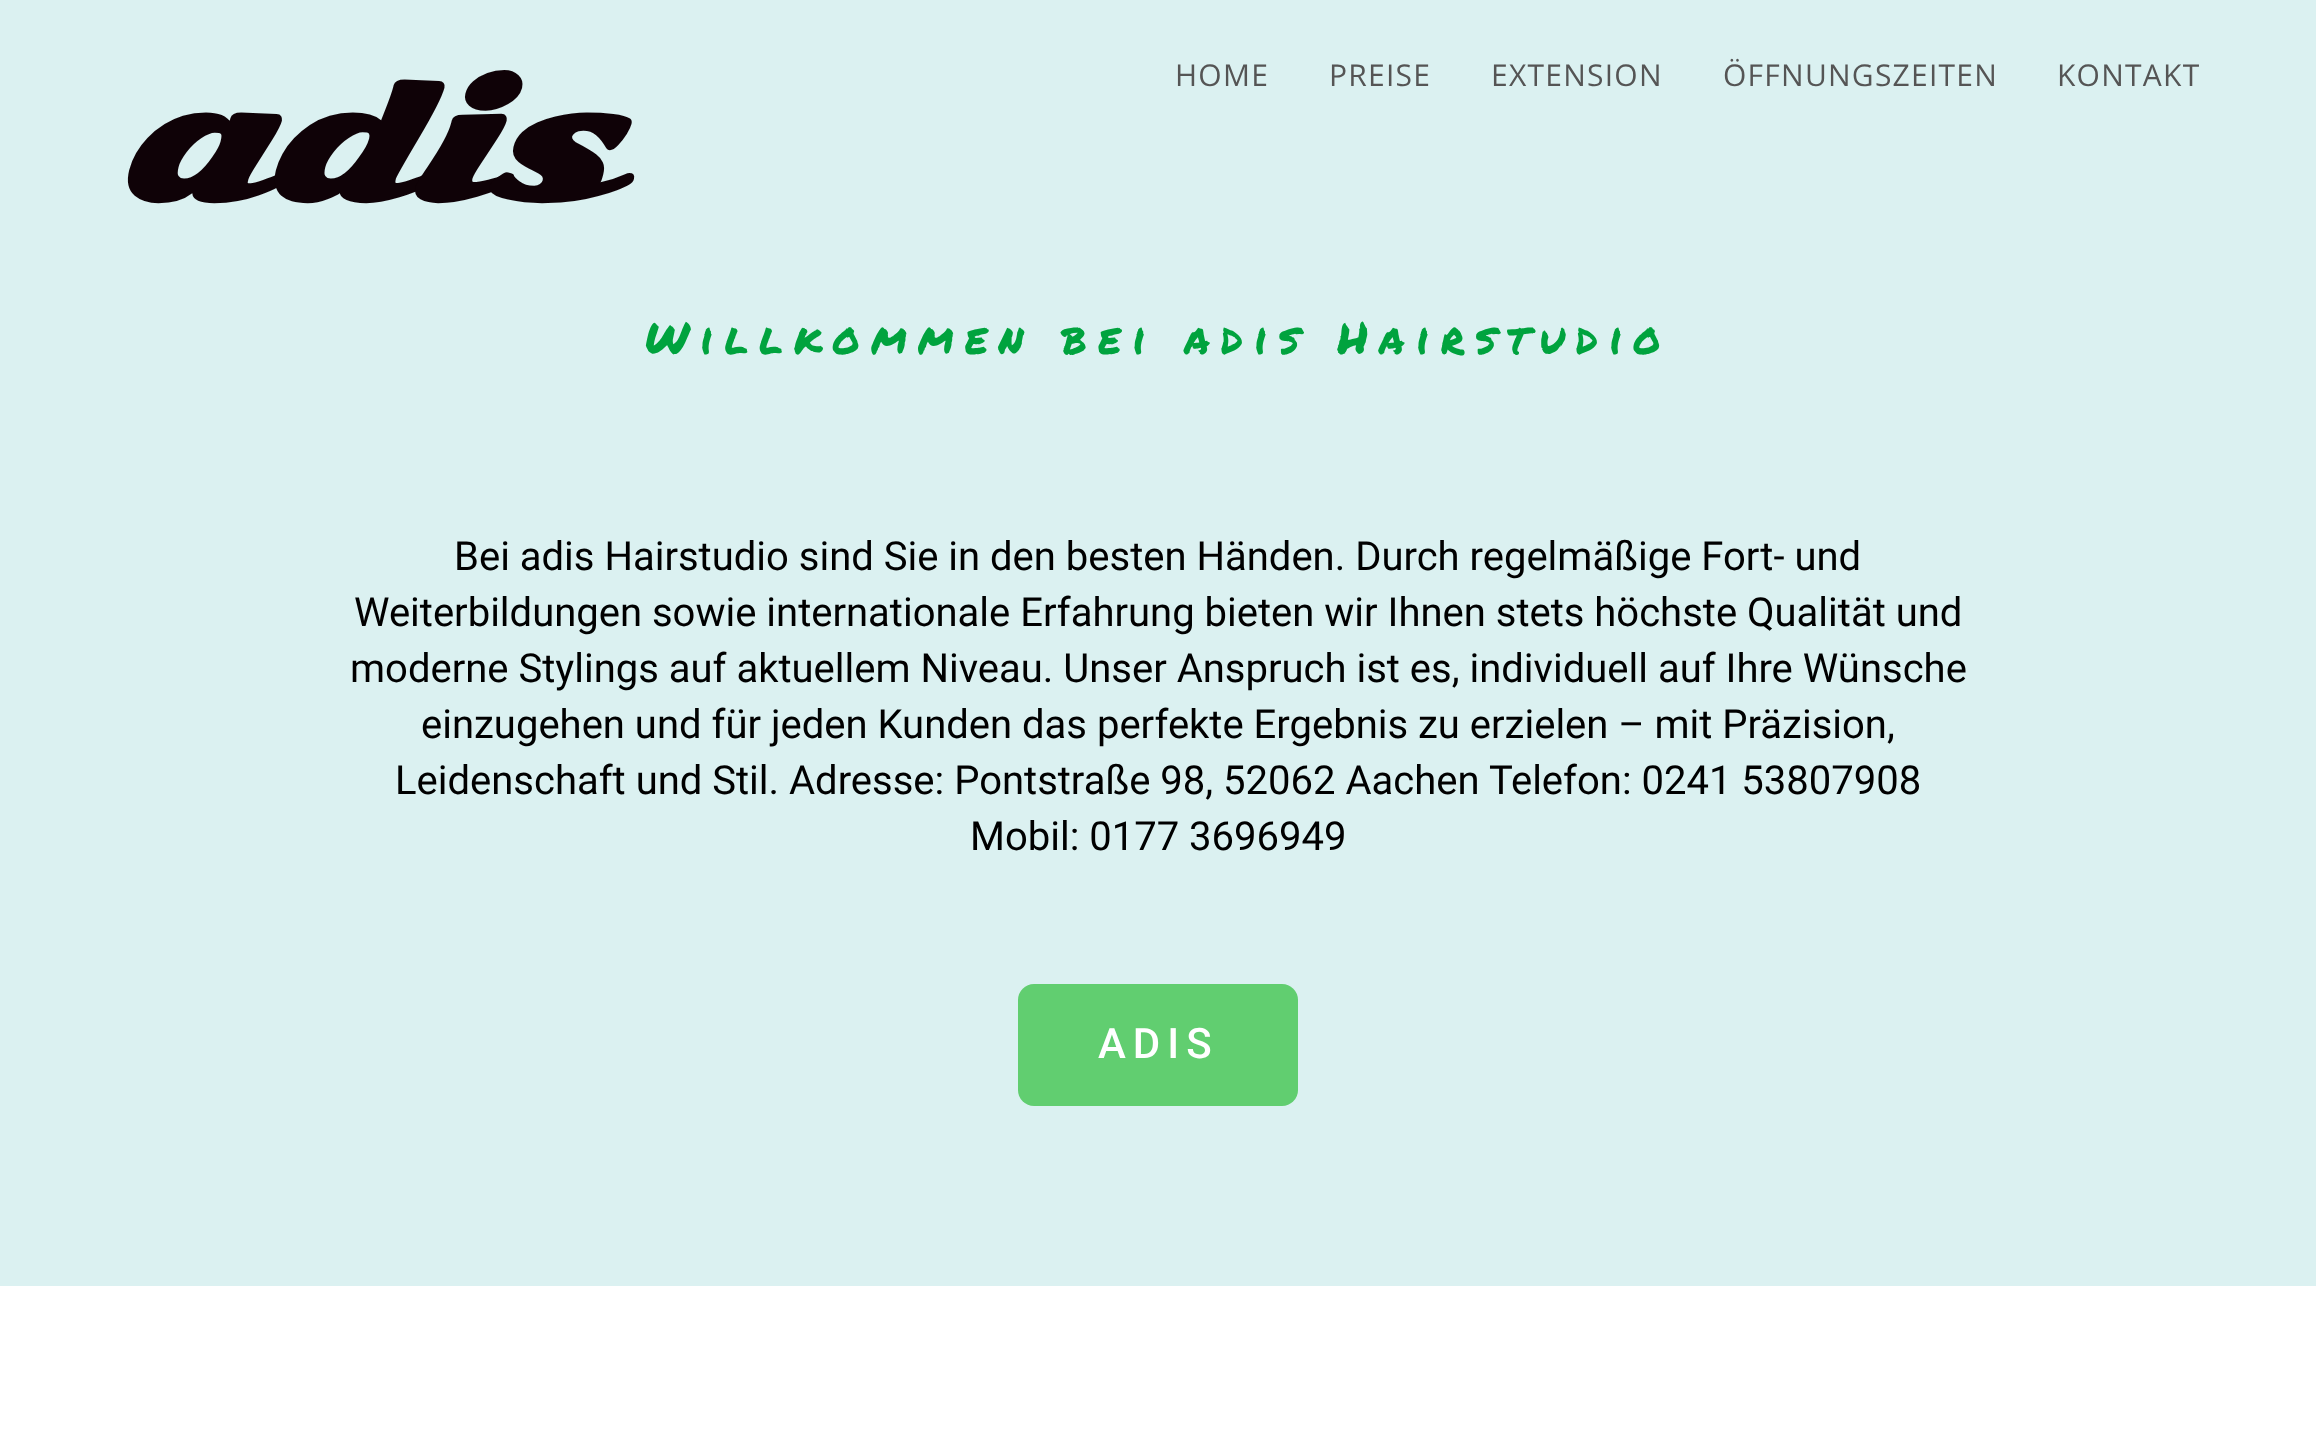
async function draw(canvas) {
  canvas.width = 2316
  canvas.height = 1445
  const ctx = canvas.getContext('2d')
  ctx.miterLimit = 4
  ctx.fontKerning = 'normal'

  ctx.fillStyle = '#fff'
  ctx.fillRect(0, 0, 2316, 1445)
  ctx.fillStyle = '#dbf1f1'
  ctx.fillRect(0, 0, 2316, 1286)
  ctx.font = 'italic bold 160px Sonsie One'
  ctx.fillStyle = '#0f0207'
  ctx.fillText('adis', 116, 200)
  ctx.letterSpacing = '1.25px'
  ctx.font = '30px Open Sans'
  ctx.fillStyle = '#555'
  ctx.fillText('HOME', 1175, 86)
  ctx.fillText('PREISE', 1329, 86)
  ctx.fillText('EXTENSION', 1491, 86)
  ctx.fillText('ÖFFNUNGSZEITEN', 1723, 86)
  ctx.fillText('KONTAKT', 2057, 86)
  ctx.letterSpacing = '11px'
  ctx.font = '44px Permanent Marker'
  ctx.fillStyle = '#00a33e'
  ctx.fillText('Willkommen bei adis Hairstudio', 645, 354)
  ctx.letterSpacing = '0px'
  ctx.font = '40px Roboto'
  ctx.fillStyle = '#000'
  ctx.fillText('Bei adis Hairstudio sind Sie in den besten Händen. Durch regelmäßige Fort- und', 454, 570)
  ctx.fillText('Weiterbildungen sowie internationale Erfahrung bieten wir Ihnen stets höchste Qualität und', 354, 626)
  ctx.fillText('moderne Stylings auf aktuellem Niveau. Unser Anspruch ist es, individuell auf Ihre Wünsche', 350, 682)
  ctx.fillText('einzugehen und für jeden Kunden das perfekte Ergebnis zu erzielen – mit Präzision,', 421, 738)
  ctx.fillText('Leidenschaft und Stil.', 395, 794)
  ctx.fillText('Adresse: Pontstraße 98, 52062 Aachen', 789, 794)
  ctx.fillText('Telefon: 0241 53807908', 1489, 794)
  ctx.fillText('Mobil: 0177 3696949', 970, 850)
  ctx.fillStyle = '#61ce70'
  ctx.beginPath()
  ctx.roundRect(1018, 984, 280, 122, 16)
  ctx.fill()
  ctx.letterSpacing = '7px'
  ctx.font = '500 42px Roboto'
  ctx.fillStyle = '#fff'
  ctx.fillText('ADIS', 1098, 1058)
}

draw(document.querySelector('canvas'))
